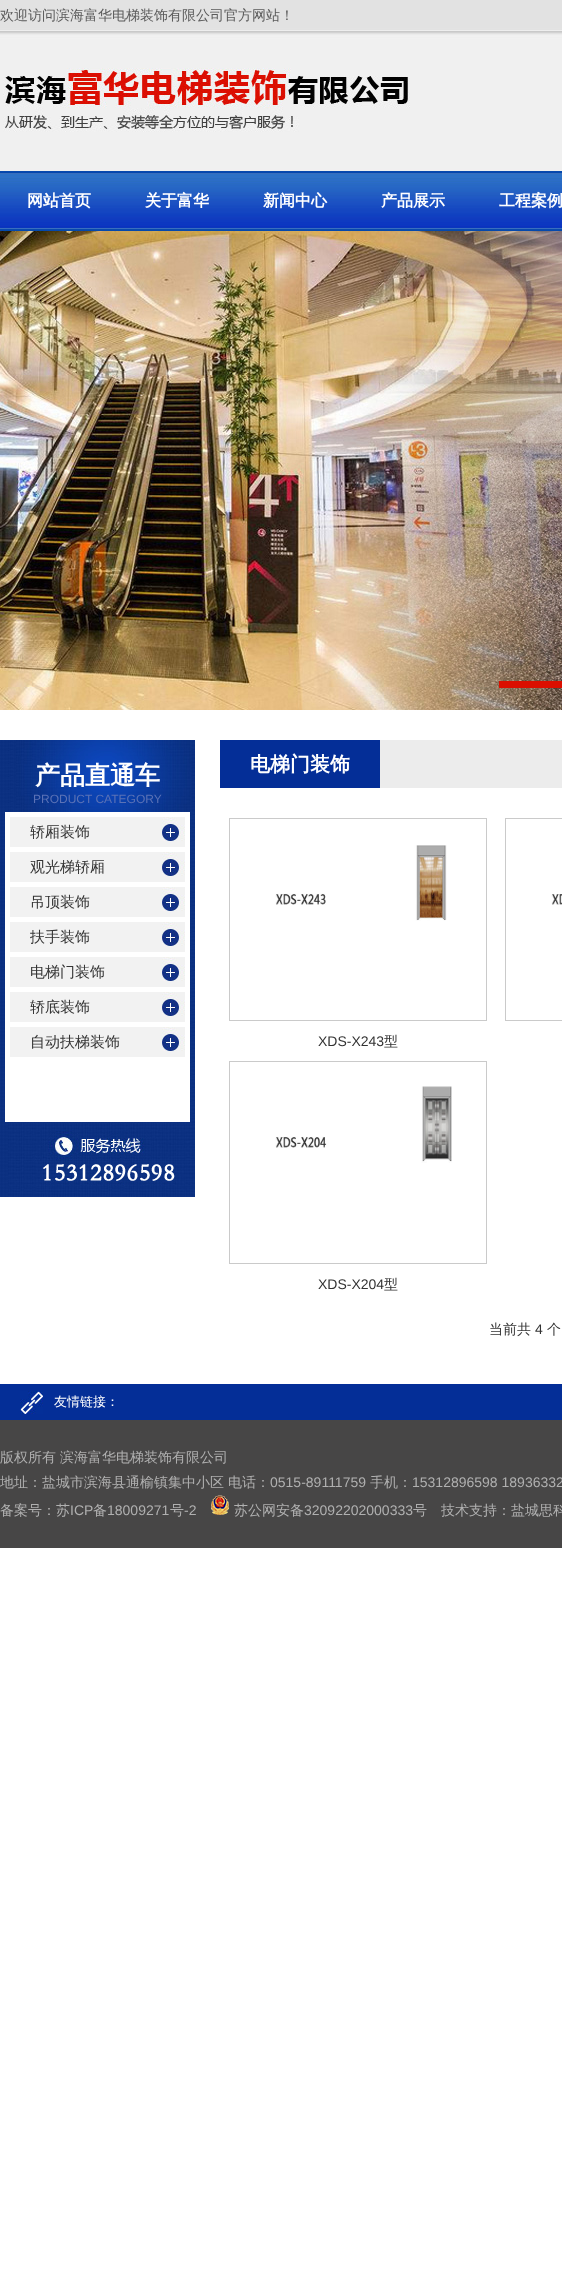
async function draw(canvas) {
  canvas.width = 562
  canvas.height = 2296
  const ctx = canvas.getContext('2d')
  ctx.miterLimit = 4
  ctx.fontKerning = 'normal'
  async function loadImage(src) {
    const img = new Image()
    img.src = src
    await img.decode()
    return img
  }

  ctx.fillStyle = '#fff'
  ctx.fillRect(0, 0, 562, 2296)
  ctx.drawImage(await loadImage('image0.png'), 0, 0, 562, 231)
  ctx.font = '500 14px WenQuanYi Zen Hei'
  ctx.fillStyle = '#5a5a5a'
  ctx.fillText('欢迎访问滨海富华电梯装饰有限公司官方网站！', 0, 20)
  ctx.drawImage(await loadImage('image1.png'), 3, 68, 407, 64)
  ctx.font = 'bold 16px WenQuanYi Zen Hei'
  ctx.fillStyle = '#fff'
  ctx.fillText('网站首页', 27, 206)
  ctx.fillText('关于富华', 145, 206)
  ctx.fillText('新闻中心', 263, 206)
  ctx.fillText('产品展示', 381, 206)
  ctx.fillText('工程案例', 499, 206)
  ctx.drawImage(await loadImage('image2.png'), 0, 231, 562, 479)
  ctx.fillStyle = '#db0f00'
  ctx.fillRect(499, 681, 63, 7)
  ctx.drawImage(await loadImage('image3.png'), 0, 740, 195, 457)
  ctx.drawImage(await loadImage('image4.png'), 16, 740, 175, 72)
  ctx.font = 'bold 25px WenQuanYi Zen Hei'
  ctx.fillStyle = '#fff'
  ctx.fillText('产品直通车', 35, 784)
  ctx.font = '12px Liberation Sans'
  ctx.fillStyle = '#5b72b6'
  ctx.fillText('PRODUCT CATEGORY', 33, 803)
  ctx.fillStyle = '#fff'
  ctx.fillRect(5, 812, 185, 310)
  ctx.drawImage(await loadImage('image5.png'), 10, 817, 175, 30)
  ctx.font = '500 15px WenQuanYi Zen Hei'
  ctx.fillStyle = '#333'
  ctx.fillText('轿厢装饰', 30, 837)
  ctx.drawImage(await loadImage('image5.png'), 10, 852, 175, 30)
  ctx.fillText('观光梯轿厢', 30, 872)
  ctx.drawImage(await loadImage('image5.png'), 10, 887, 175, 30)
  ctx.fillText('吊顶装饰', 30, 907)
  ctx.drawImage(await loadImage('image5.png'), 10, 922, 175, 30)
  ctx.fillText('扶手装饰', 30, 942)
  ctx.drawImage(await loadImage('image5.png'), 10, 957, 175, 30)
  ctx.fillText('电梯门装饰', 30, 977)
  ctx.drawImage(await loadImage('image5.png'), 10, 992, 175, 30)
  ctx.fillText('轿底装饰', 30, 1012)
  ctx.drawImage(await loadImage('image5.png'), 10, 1027, 175, 30)
  ctx.fillText('自动扶梯装饰', 30, 1047)
  ctx.drawImage(await loadImage('image6.png'), 8, 1123, 187, 74)
  ctx.fillStyle = '#ececec'
  ctx.fillRect(380, 740, 182, 48)
  ctx.fillStyle = '#042e97'
  ctx.fillRect(220, 740, 160, 48)
  ctx.font = 'bold 20px WenQuanYi Zen Hei'
  ctx.fillStyle = '#fff'
  ctx.fillText('电梯门装饰', 250, 771)
  ctx.strokeStyle = '#cacaca'
  ctx.strokeRect(505.5, 818.5, 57, 202)
  ctx.drawImage(await loadImage('image7.png'), 551, 894, 11, 11)
  ctx.strokeRect(229.5, 818.5, 257, 202)
  ctx.drawImage(await loadImage('image8.png'), 275, 845, 172, 76)
  ctx.font = '14px Liberation Sans'
  ctx.fillStyle = '#333'
  ctx.fillText('XDS-X243', 318, 1046)
  ctx.font = '500 14px WenQuanYi Zen Hei'
  ctx.fillText('型', 384, 1046)
  ctx.strokeRect(229.5, 1061.5, 257, 202)
  ctx.drawImage(await loadImage('image9.png'), 275, 1086, 177, 77)
  ctx.font = '14px Liberation Sans'
  ctx.fillText('XDS-X204', 318, 1289)
  ctx.font = '500 14px WenQuanYi Zen Hei'
  ctx.fillText('型', 384, 1289)
  ctx.fillText('当前共', 489, 1334)
  ctx.font = '14px Liberation Sans'
  ctx.fillText('4', 535, 1334)
  ctx.font = '500 14px WenQuanYi Zen Hei'
  ctx.fillText('个', 547, 1334)
  ctx.fillStyle = '#474646'
  ctx.fillRect(0, 1420, 562, 128)
  ctx.fillStyle = '#042e97'
  ctx.fillRect(0, 1384, 562, 36)
  ctx.drawImage(await loadImage('image10.png'), 20, 1391, 23, 23)
  ctx.font = '500 13px WenQuanYi Zen Hei'
  ctx.fillStyle = '#fff'
  ctx.fillText('友情链接：', 54, 1406)
  ctx.font = '500 14px WenQuanYi Zen Hei'
  ctx.fillStyle = '#b0b0b0'
  ctx.fillText('版权所有', 0, 1462)
  ctx.fillText('滨海富华电梯装饰有限公司', 60, 1462)
  ctx.fillText('地址：盐城市滨海县通榆镇集中小区', 0, 1487)
  ctx.fillText('电话：', 228, 1487)
  ctx.font = '14px Liberation Sans'
  ctx.fillText('0515-89111759', 270, 1487)
  ctx.font = '500 14px WenQuanYi Zen Hei'
  ctx.fillText('手机：', 370, 1487)
  ctx.font = '14px Liberation Sans'
  ctx.fillText('15312896598 18936332', 412, 1487)
  ctx.font = '500 14px WenQuanYi Zen Hei'
  ctx.fillText('备案号：苏', 0, 1515)
  ctx.font = '14px Liberation Sans'
  ctx.fillText('ICP', 70, 1515)
  ctx.font = '500 14px WenQuanYi Zen Hei'
  ctx.fillText('备', 93, 1515)
  ctx.font = '14px Liberation Sans'
  ctx.fillText('18009271', 107, 1515)
  ctx.font = '500 14px WenQuanYi Zen Hei'
  ctx.fillText('号', 170, 1515)
  ctx.font = '14px Liberation Sans'
  ctx.fillText('-2', 184, 1515)
  ctx.drawImage(await loadImage('image11.png'), 211, 1495, 18, 20)
  ctx.font = '500 14px WenQuanYi Zen Hei'
  ctx.fillText('苏公网安备', 234, 1515)
  ctx.font = '14px Liberation Sans'
  ctx.fillText('32092202000333', 304, 1515)
  ctx.font = '500 14px WenQuanYi Zen Hei'
  ctx.fillText('号', 413, 1515)
  ctx.fillText('技术支持：盐城思科', 441, 1515)
}

draw(document.querySelector('canvas'))
